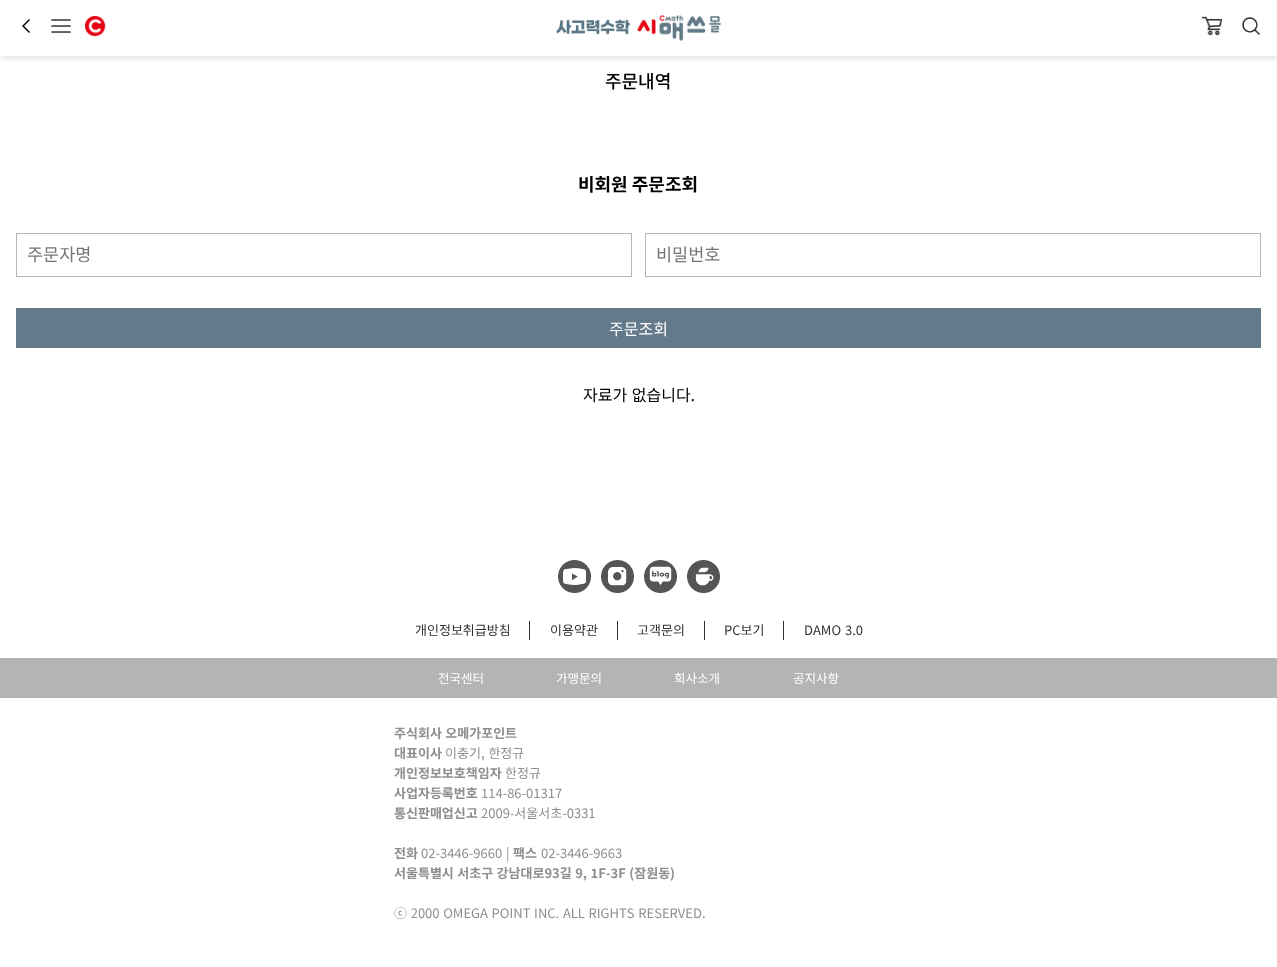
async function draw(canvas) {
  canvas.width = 1277
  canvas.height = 967
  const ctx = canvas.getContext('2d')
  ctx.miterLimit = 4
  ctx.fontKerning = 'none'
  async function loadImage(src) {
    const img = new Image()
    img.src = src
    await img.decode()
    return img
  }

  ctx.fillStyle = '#fff'
  ctx.fillRect(0, 0, 1277, 967)
  ctx.save()
  ctx.beginPath()
  ctx.rect(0, 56, 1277, 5)
  ctx.clip()
  ctx.fillStyle = '#0000001f'
  ctx.filter = 'blur(3px)'
  ctx.beginPath()
  ctx.rect(2, 2, 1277, 56)
  ctx.fill()
  ctx.filter = 'none'
  ctx.restore()
  ctx.drawImage(await loadImage('image0.png'), 22, 19, 8, 14)
  ctx.drawImage(await loadImage('image1.png'), 51, 19, 20, 14)
  ctx.drawImage(await loadImage('image2.png'), 85, 15, 21, 22)
  ctx.drawImage(await loadImage('image3.png'), 556, 19, 74, 16)
  ctx.drawImage(await loadImage('image4.png'), 637, 15, 84, 26)
  ctx.drawImage(await loadImage('image5.png'), 1202, 16, 20, 20)
  ctx.drawImage(await loadImage('image6.png'), 1242, 17, 18, 18)
  ctx.font = '500 18px Noto Sans KR'
  ctx.fillStyle = '#000'
  ctx.fillText('주문내역', 605, 88)
  ctx.font = 'bold 18px Noto Sans KR'
  ctx.fillText('비회원 주문조회', 578, 191)
  ctx.strokeStyle = '#b5b5b5'
  ctx.strokeRect(16.5, 233.5, 615, 43)
  ctx.font = '17.5px Noto Sans KR'
  ctx.fillStyle = '#757575'
  ctx.fillText('주문자명', 27, 261)
  ctx.strokeRect(645.5, 233.5, 615, 43)
  ctx.fillText('비밀번호', 656, 261)
  ctx.fillStyle = '#627a89'
  ctx.fillRect(16, 308, 1245, 40)
  ctx.font = '16px Noto Sans KR'
  ctx.fillStyle = '#fff'
  ctx.fillText('주문조회', 609, 335)
  ctx.wordSpacing = '1px'
  ctx.fillStyle = '#000'
  ctx.fillText('자료가 없습니다.', 583, 401)
  ctx.drawImage(await loadImage('image7.png'), 558, 560, 33, 33)
  ctx.drawImage(await loadImage('image8.png'), 601, 560, 33, 33)
  ctx.drawImage(await loadImage('image9.png'), 644, 560, 33, 33)
  ctx.drawImage(await loadImage('image10.png'), 687, 560, 33, 33)
  ctx.fillStyle = '#333'
  ctx.fillRect(529, 621, 1, 19)
  ctx.wordSpacing = '0px'
  ctx.font = '13px Noto Sans KR'
  ctx.fillText('개인정보취급방침', 415, 635)
  ctx.fillRect(617, 621, 1, 19)
  ctx.fillText('이용약관', 550, 635)
  ctx.fillRect(704, 621, 1, 19)
  ctx.fillText('고객문의', 637, 635)
  ctx.fillRect(783, 621, 1, 19)
  ctx.fillText('PC보기', 724, 635)
  ctx.wordSpacing = '1px'
  ctx.fillText('DAMO 3.0', 804, 635)
  ctx.fillStyle = '#b4b4b4'
  ctx.fillRect(0, 658, 1277, 40)
  ctx.wordSpacing = '0px'
  ctx.font = '12.5px Noto Sans KR'
  ctx.fillStyle = '#fff'
  ctx.fillText('전국센터', 438, 683)
  ctx.fillText('가맹문의', 556, 683)
  ctx.fillText('회사소개', 674, 683)
  ctx.fillText('공지사항', 793, 683)
  ctx.wordSpacing = '0.5px'
  ctx.font = 'bold 13px Noto Sans KR'
  ctx.fillStyle = '#8e8e8e'
  ctx.fillText('주식회사 오메가포인트', 394, 738)
  ctx.wordSpacing = '0px'
  ctx.fillText('대표이사', 394, 758)
  ctx.wordSpacing = '1px'
  ctx.font = '13px Noto Sans KR'
  ctx.fillText('이충기, 한정규', 445, 758)
  ctx.wordSpacing = '0px'
  ctx.font = 'bold 13px Noto Sans KR'
  ctx.fillText('개인정보보호책임자', 394, 778)
  ctx.font = '13px Noto Sans KR'
  ctx.fillText('한정규', 505, 778)
  ctx.font = 'bold 13px Noto Sans KR'
  ctx.fillText('사업자등록번호', 394, 798)
  ctx.font = '13px Noto Sans KR'
  ctx.fillText('114-86-01317', 481, 798)
  ctx.font = 'bold 13px Noto Sans KR'
  ctx.fillText('통신판매업신고', 394, 818)
  ctx.font = '13px Noto Sans KR'
  ctx.fillText('2009-서울서초-0331', 481, 818)
  ctx.font = 'bold 13px Noto Sans KR'
  ctx.fillText('전화', 394, 858)
  ctx.wordSpacing = '1px'
  ctx.font = '13px Noto Sans KR'
  ctx.fillText('02-3446-9660 |', 421, 858)
  ctx.wordSpacing = '0px'
  ctx.font = 'bold 13px Noto Sans KR'
  ctx.fillText('팩스', 513, 858)
  ctx.font = '13px Noto Sans KR'
  ctx.fillText('02-3446-9663', 541, 858)
  ctx.wordSpacing = '0.5px'
  ctx.font = 'bold 13px Noto Sans KR'
  ctx.fillText('서울특별시 서초구 강남대로93길 9, 1F-3F (잠원동)', 394, 878)
  ctx.wordSpacing = '0.75px'
  ctx.font = '13px Noto Sans KR'
  ctx.fillText('ⓒ 2000 OMEGA POINT INC. ALL RIGHTS RESERVED.', 394, 918)
}

draw(document.querySelector('canvas'))
